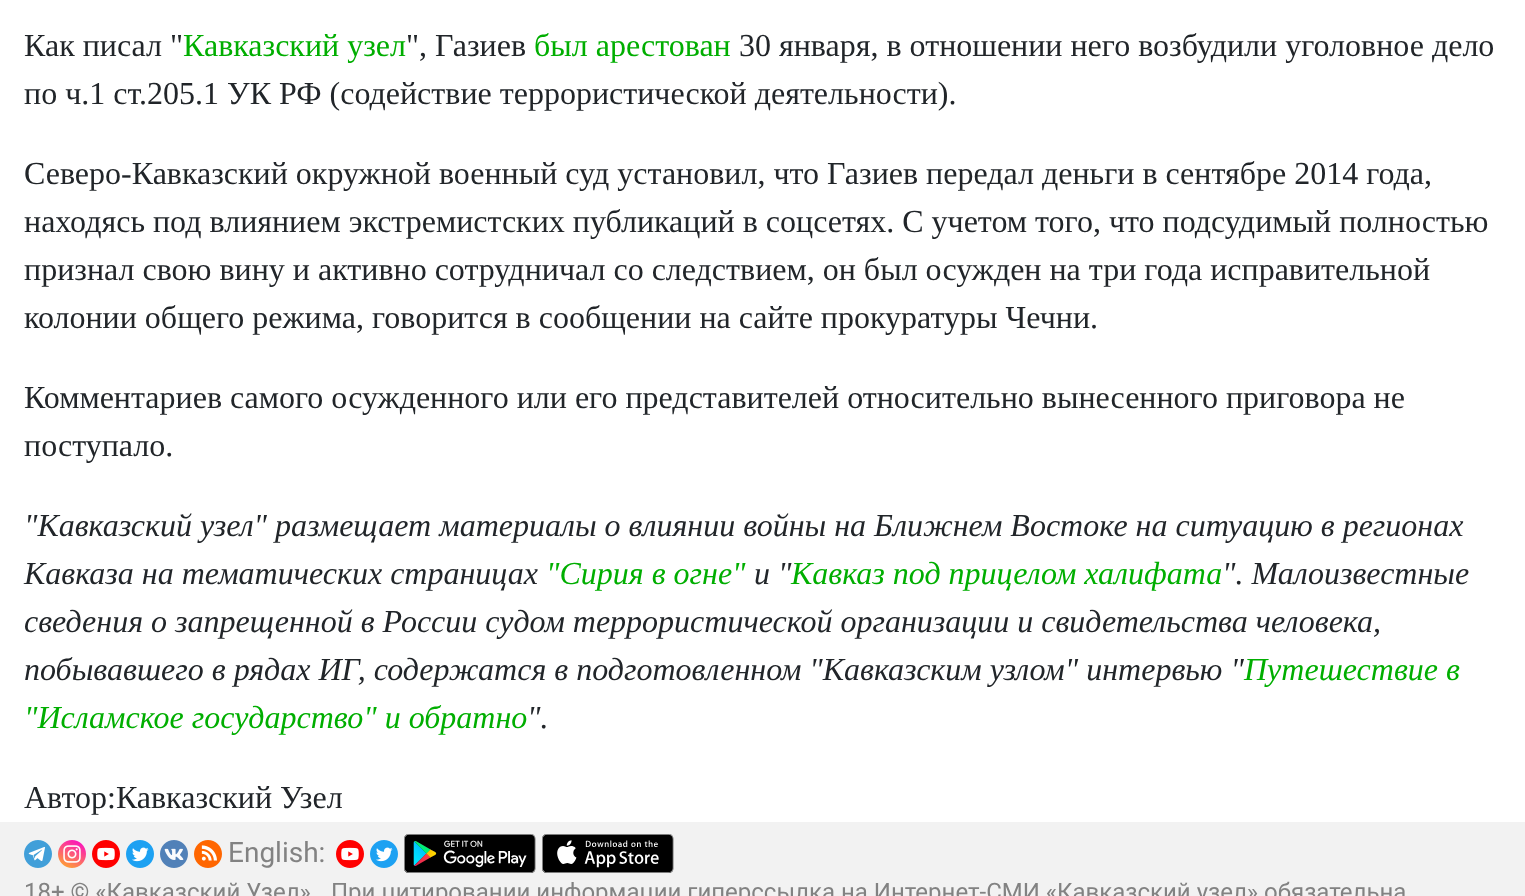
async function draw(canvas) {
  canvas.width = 1525
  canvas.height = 896
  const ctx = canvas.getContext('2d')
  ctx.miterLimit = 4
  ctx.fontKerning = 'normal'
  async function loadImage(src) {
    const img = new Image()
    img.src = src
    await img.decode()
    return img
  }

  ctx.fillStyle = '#fff'
  ctx.fillRect(0, 0, 1525, 896)
  ctx.font = '32px Liberation Serif'
  ctx.fillStyle = '#212529'
  ctx.fillText('Как писал "', 24, 56)
  ctx.fillStyle = '#00ae00'
  ctx.fillText('Кавказский узел', 183, 56)
  ctx.fillStyle = '#212529'
  ctx.fillText('", Газиев', 406, 56)
  ctx.fillStyle = '#00ae00'
  ctx.fillText('был арестован', 534, 56)
  ctx.fillStyle = '#212529'
  ctx.fillText('30 января, в отношении него возбудили уголовное дело', 739, 56)
  ctx.fillText('по ч.1 ст.205.1 УК РФ (содействие террористической деятельности).', 24, 104)
  ctx.fillText('Северо-Кавказский окружной военный суд установил, что Газиев передал деньги в сентябре 2014 года,', 24, 184)
  ctx.fillText('находясь под влиянием экстремистских публикаций в соцсетях. С учетом того, что подсудимый полностью', 24, 232)
  ctx.fillText('признал свою вину и активно сотрудничал со следствием, он был осужден на три года исправительной', 24, 280)
  ctx.fillText('колонии общего режима, говорится в сообщении на сайте прокуратуры Чечни.', 24, 328)
  ctx.fillText('Комментариев самого осужденного или его представителей относительно вынесенного приговора не', 24, 408)
  ctx.fillText('поступало.', 24, 456)
  ctx.font = 'italic 32px Liberation Serif'
  ctx.fillText('"Кавказский узел" размещает материалы о влиянии войны на Ближнем Востоке на ситуацию в регионах', 24, 536)
  ctx.fillText('Кавказа на тематических страницах', 24, 584)
  ctx.fillStyle = '#00ae00'
  ctx.fillText('"Сирия в огне"', 546, 584)
  ctx.fillStyle = '#212529'
  ctx.fillText('и "', 754, 584)
  ctx.fillStyle = '#00ae00'
  ctx.fillText('Кавказ под прицелом халифата', 791, 584)
  ctx.fillStyle = '#212529'
  ctx.fillText('". Малоизвестные', 1222, 584)
  ctx.fillText('сведения о запрещенной в России судом террористической организации и свидетельства человека,', 24, 632)
  ctx.fillText('побывавшего в рядах ИГ, содержатся в подготовленном "Кавказским узлом" интервью "', 24, 680)
  ctx.fillStyle = '#00ae00'
  ctx.fillText('Путешествие в', 1244, 680)
  ctx.fillText('"Исламское государство" и обратно', 24, 728)
  ctx.fillStyle = '#212529'
  ctx.fillText('".', 527, 728)
  ctx.font = '32px Liberation Serif'
  ctx.fillText('Автор:Кавказский Узел', 24, 808)
  ctx.fillStyle = '#f2f2f2'
  ctx.fillRect(0, 822, 1525, 74)
  ctx.drawImage(await loadImage('image0.png'), 24, 840, 28, 28)
  ctx.drawImage(await loadImage('image1.png'), 58, 840, 28, 28)
  ctx.drawImage(await loadImage('image2.png'), 92, 840, 28, 28)
  ctx.drawImage(await loadImage('image3.png'), 126, 840, 28, 28)
  ctx.drawImage(await loadImage('image4.png'), 160, 840, 28, 28)
  ctx.drawImage(await loadImage('image5.png'), 194, 840, 28, 28)
  ctx.font = '28px Roboto'
  ctx.fillStyle = '#828282'
  ctx.fillText('English:', 228, 862)
  ctx.drawImage(await loadImage('image2.png'), 336, 840, 28, 28)
  ctx.drawImage(await loadImage('image3.png'), 370, 840, 28, 28)
  ctx.drawImage(await loadImage('image6.png'), 404, 834, 132, 39)
  ctx.drawImage(await loadImage('image7.png'), 542, 834, 132, 39)
  ctx.font = '24px Roboto'
  ctx.fillText('18+ © «Кавказский Узел»', 24, 900)
  ctx.fillText('При цитировании информации гиперссылка на Интернет-СМИ «Кавказский узел» обязательна', 331, 900)
}

draw(document.querySelector('canvas'))
